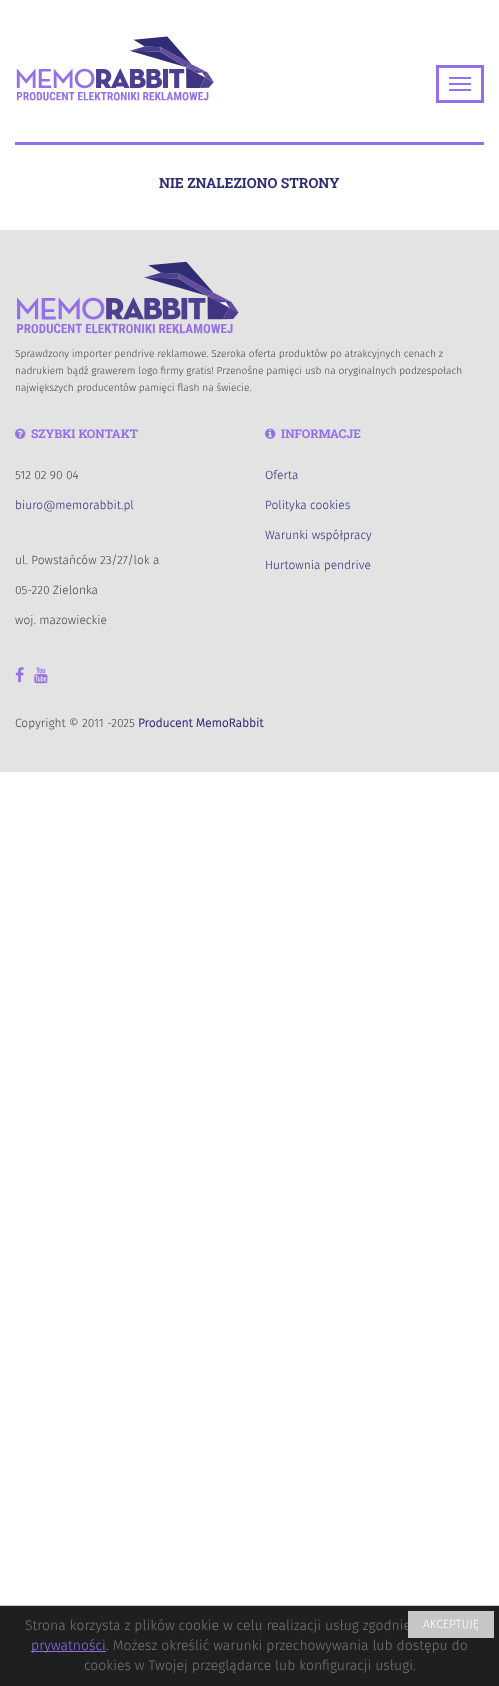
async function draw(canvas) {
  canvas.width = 499
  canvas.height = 1686
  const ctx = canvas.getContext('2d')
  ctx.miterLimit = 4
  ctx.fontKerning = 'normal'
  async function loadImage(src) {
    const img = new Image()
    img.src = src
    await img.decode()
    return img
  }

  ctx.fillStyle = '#fff'
  ctx.fillRect(0, 0, 499, 1686)
  ctx.drawImage(await loadImage('image0.png'), 16, 36, 198, 65)
  ctx.strokeStyle = '#936fe9'
  ctx.lineWidth = 3
  ctx.strokeRect(437.5, 66.5, 45, 35)
  ctx.fillStyle = '#936fe9'
  ctx.fillRect(449, 77, 22, 2)
  ctx.fillRect(449, 83, 22, 2)
  ctx.fillRect(449, 89, 22, 2)
  ctx.fillRect(15, 142, 469, 3)
  ctx.font = 'bold 14px Roboto Slab'
  ctx.fillStyle = '#2e2d73'
  ctx.fillText('NIE ZNALEZIONO STRONY', 159, 188)
  ctx.fillStyle = '#e3e3e3'
  ctx.fillRect(0, 230, 499, 542)
  ctx.drawImage(await loadImage('image1.png'), 17, 261, 222, 73)
  ctx.font = '300 10.2px Fira Sans'
  ctx.fillStyle = '#444'
  ctx.fillText('Sprawdzony importer pendrive reklamowe. Szeroka oferta produktów po atrakcyjnych cenach z', 15, 357)
  ctx.fillText('nadrukiem bądź grawerem logo firmy gratis! Przenośne pamięci usb na oryginalnych podzespołach', 15, 374)
  ctx.fillText('największych producentów pamięci flash na świecie.', 15, 391)
  ctx.drawImage(await loadImage('image2.png'), 15, 428, 11, 11)
  ctx.font = 'bold 12px Roboto Slab'
  ctx.fillStyle = '#936fe9'
  ctx.fillText('SZYBKI KONTAKT', 31, 438)
  ctx.font = '300 12px Fira Sans'
  ctx.fillStyle = '#444'
  ctx.fillText('512 02 90 04', 15, 479)
  ctx.fillStyle = '#2e2d73'
  ctx.fillText('biuro@memorabbit.pl', 15, 509)
  ctx.fillStyle = '#444'
  ctx.fillText('ul. Powstańców 23/27/lok a', 15, 564)
  ctx.fillText('05-220 Zielonka', 15, 594)
  ctx.fillText('woj. mazowieckie', 15, 624)
  ctx.drawImage(await loadImage('image3.png'), 15, 667, 9, 16)
  ctx.drawImage(await loadImage('image4.png'), 34, 667, 14, 17)
  ctx.drawImage(await loadImage('image5.png'), 265, 428, 11, 11)
  ctx.font = 'bold 12px Roboto Slab'
  ctx.fillStyle = '#936fe9'
  ctx.fillText('INFORMACJE', 281, 438)
  ctx.font = '300 12px Fira Sans'
  ctx.fillStyle = '#2e2d73'
  ctx.fillText('Oferta', 265, 479)
  ctx.fillText('Polityka cookies', 265, 509)
  ctx.fillText('Warunki współpracy', 265, 539)
  ctx.fillText('Hurtownia pendrive', 265, 569)
  ctx.fillStyle = '#444'
  ctx.fillText('Copyright © 2011 -2025', 15, 727)
  ctx.font = 'bold 12px Fira Sans'
  ctx.fillStyle = '#2e2d73'
  ctx.fillText('Producent MemoRabbit', 138, 727)
  ctx.fillStyle = '#1f1f1f'
  ctx.fillRect(0, 1606, 499, 80)
  ctx.fillStyle = '#c6c6c6'
  ctx.fillRect(0, 1605, 499, 1)
  ctx.font = '300 14px Fira Sans'
  ctx.fillStyle = '#777'
  ctx.fillText('Strona korzysta z plików cookie w celu realizacji usług zgodnie', 25, 1630)
  ctx.fillStyle = '#c6c6c6'
  ctx.fillRect(408, 1611, 86, 27)
  ctx.font = '300 12px Fira Sans'
  ctx.fillStyle = '#fff'
  ctx.fillText('AKCEPTUJĘ', 423, 1628)
  ctx.fillStyle = '#936fe9'
  ctx.fillRect(31, 1651, 75, 1)
  ctx.font = '300 14px Fira Sans'
  ctx.fillText('prywatności', 31, 1650)
  ctx.fillStyle = '#777'
  ctx.fillText('. Możesz określić warunki przechowywania lub dostępu do', 106, 1650)
  ctx.fillText('cookies w Twojej przeglądarce lub konfiguracji usługi.', 84, 1670)
}

draw(document.querySelector('canvas'))
